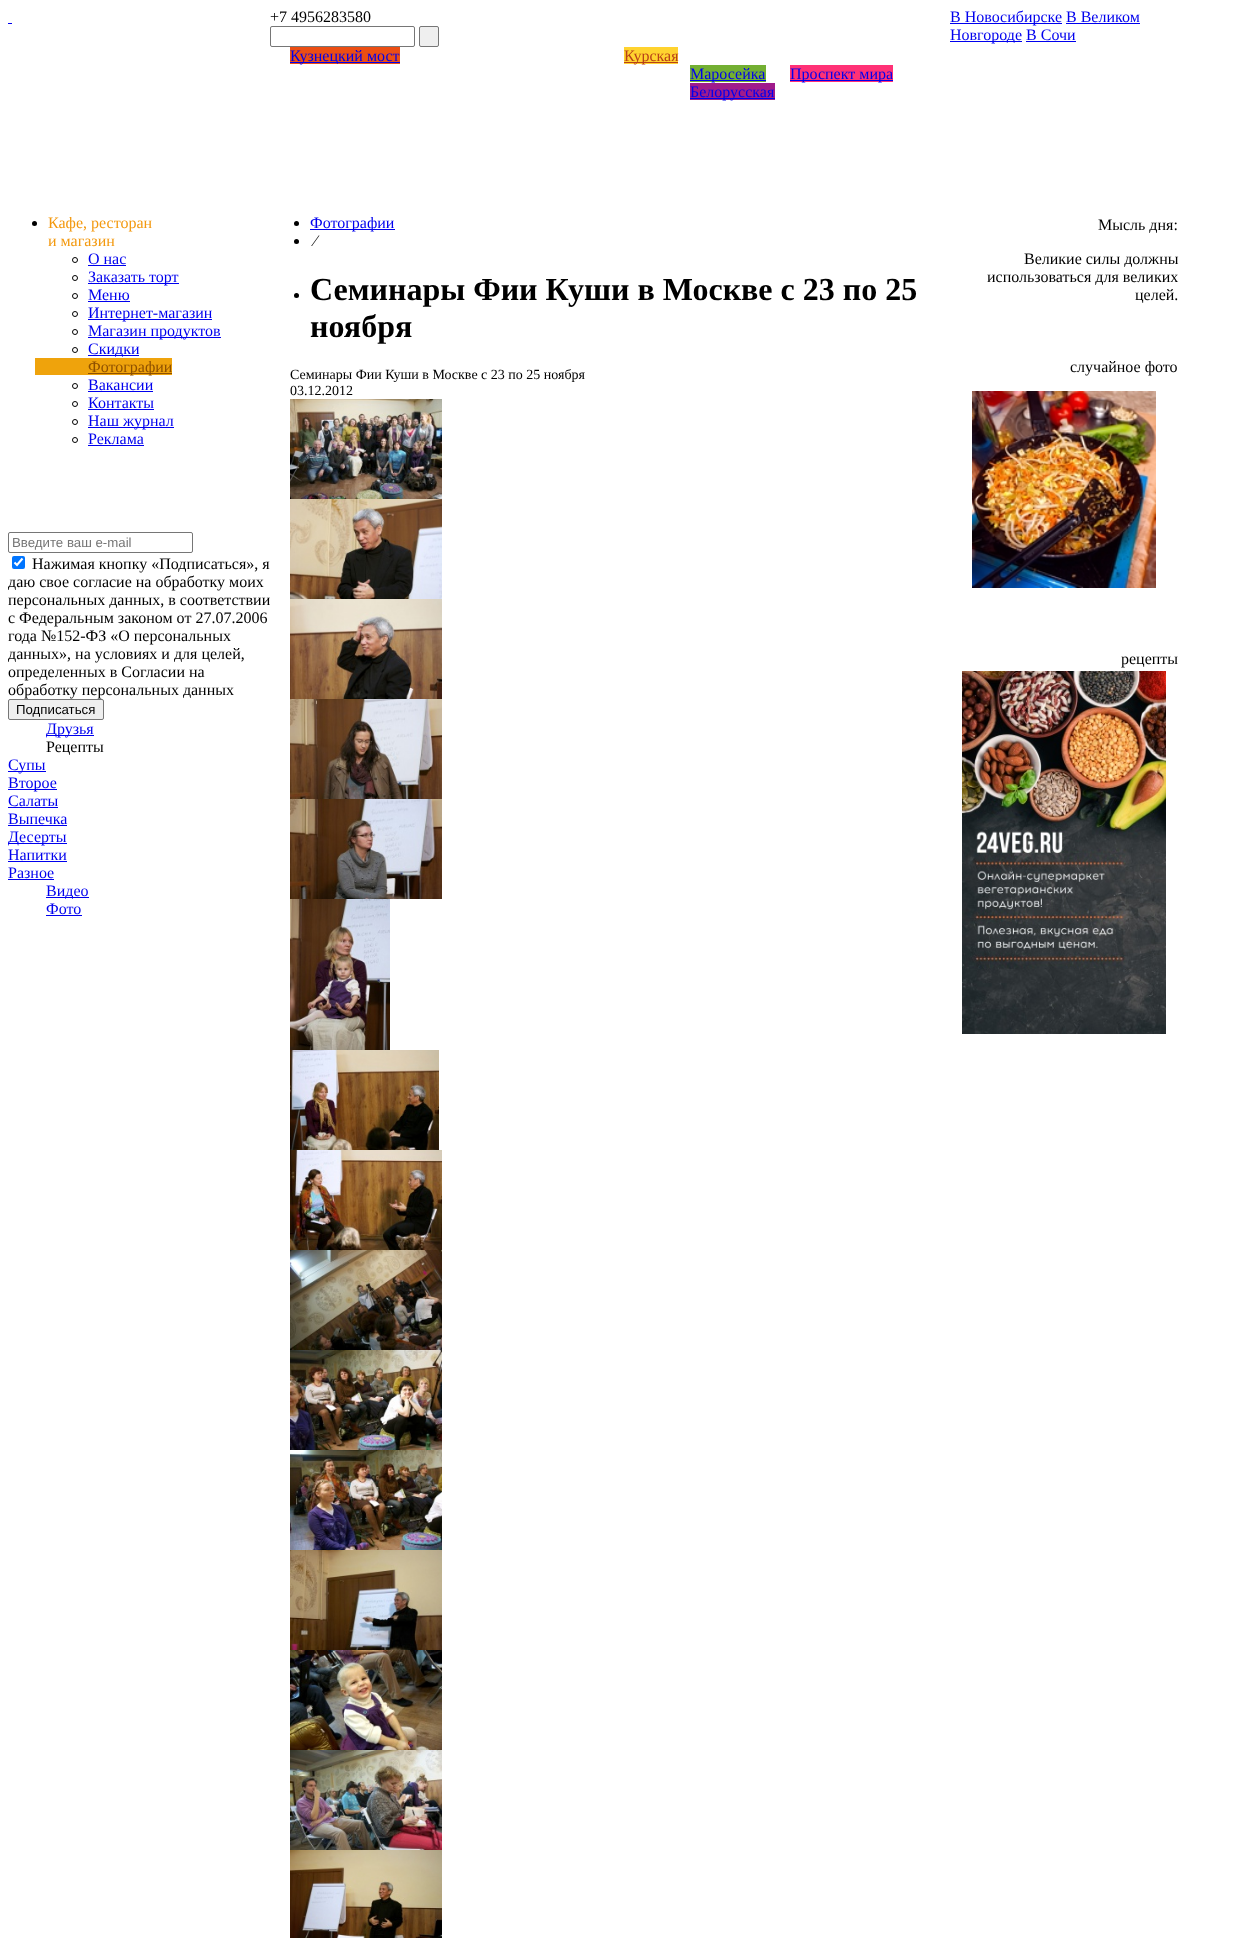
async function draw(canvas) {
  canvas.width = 1255
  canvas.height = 1938
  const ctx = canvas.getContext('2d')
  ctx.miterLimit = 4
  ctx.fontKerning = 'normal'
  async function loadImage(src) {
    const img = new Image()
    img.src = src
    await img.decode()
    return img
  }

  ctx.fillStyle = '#fff'
  ctx.fillRect(0, 0, 1255, 1938)
  ctx.fillStyle = '#00e'
  ctx.fillRect(8, 23, 4, 1)
  ctx.font = '16px Liberation Serif'
  ctx.fillStyle = '#000'
  ctx.fillText('+7 4956283580', 270, 22)
  ctx.beginPath()
  ctx.roundRect(270.5, 26.5, 144, 20, 1.5)
  ctx.strokeStyle = '#767676'
  ctx.stroke()
  ctx.fillStyle = '#efefef'
  ctx.beginPath()
  ctx.roundRect(419.5, 26.5, 19, 20, 1.5)
  ctx.fill()
  ctx.stroke()
  ctx.fillStyle = '#ec4e13'
  ctx.fillRect(290, 47, 110, 17)
  ctx.fillStyle = '#00e'
  ctx.fillRect(290, 62, 110, 1)
  ctx.fillText('Кузнецкий мост', 290, 61)
  ctx.fillStyle = '#ffd32f'
  ctx.fillRect(624, 47, 54, 17)
  ctx.fillStyle = '#b84019'
  ctx.fillRect(624, 62, 54, 1)
  ctx.fillText('Курская', 624, 61)
  ctx.fillStyle = '#73af32'
  ctx.fillRect(690, 65, 76, 17)
  ctx.fillStyle = '#00e'
  ctx.fillRect(690, 80, 76, 1)
  ctx.fillText('Маросейка', 690, 79)
  ctx.fillStyle = '#ff3176'
  ctx.fillRect(790, 65, 103, 17)
  ctx.fillStyle = '#00e'
  ctx.fillRect(790, 80, 103, 1)
  ctx.fillText('Проспект мира', 790, 79)
  ctx.fillStyle = '#a01b8b'
  ctx.fillRect(690, 83, 85, 17)
  ctx.fillStyle = '#00e'
  ctx.fillRect(690, 98, 85, 1)
  ctx.fillText('Белорусская', 690, 97)
  ctx.fillRect(950, 23, 112, 1)
  ctx.fillText('В Новосибирске В Великом', 950, 22)
  ctx.fillRect(950, 41, 72, 1)
  ctx.fillText('Новгороде В Сочи', 950, 40)
  ctx.fillRect(1066, 23, 74, 1)
  ctx.fillRect(1026, 41, 50, 1)
  ctx.fillStyle = '#000'
  ctx.beginPath()
  ctx.arc(34.5, 223.5, 2.5, 0, 2 * Math.PI)
  ctx.fill()
  ctx.fillStyle = '#f3990f'
  ctx.fillText('Кафе, ресторан', 48, 228)
  ctx.fillText('и магазин', 48, 246)
  ctx.beginPath()
  ctx.arc(75, 260, 2.5, 0, 2 * Math.PI)
  ctx.strokeStyle = '#000'
  ctx.stroke()
  ctx.fillStyle = '#00e'
  ctx.fillText('О нас', 88, 264)
  ctx.fillRect(88, 265, 38, 1)
  ctx.beginPath()
  ctx.arc(75, 278, 2.5, 0, 2 * Math.PI)
  ctx.stroke()
  ctx.fillRect(88, 283, 91, 1)
  ctx.fillText('Заказать торт', 88, 282)
  ctx.beginPath()
  ctx.arc(75, 296, 2.5, 0, 2 * Math.PI)
  ctx.stroke()
  ctx.fillText('Меню', 88, 300)
  ctx.fillRect(88, 301, 42, 1)
  ctx.beginPath()
  ctx.arc(75, 314, 2.5, 0, 2 * Math.PI)
  ctx.stroke()
  ctx.fillRect(88, 319, 124, 1)
  ctx.fillText('Интернет-магазин', 88, 318)
  ctx.beginPath()
  ctx.arc(75, 332, 2.5, 0, 2 * Math.PI)
  ctx.stroke()
  ctx.fillRect(88, 337, 133, 1)
  ctx.fillText('Магазин продуктов', 88, 336)
  ctx.beginPath()
  ctx.arc(75, 350, 2.5, 0, 2 * Math.PI)
  ctx.stroke()
  ctx.fillRect(88, 355, 51, 1)
  ctx.fillText('Скидки', 88, 354)
  ctx.fillStyle = '#efa30c'
  ctx.fillRect(35, 358, 137, 17)
  ctx.fillStyle = '#8e5000'
  ctx.fillRect(88, 373, 84, 1)
  ctx.fillText('Фотографии', 88, 372)
  ctx.beginPath()
  ctx.arc(75, 386, 2.5, 0, 2 * Math.PI)
  ctx.stroke()
  ctx.fillStyle = '#00e'
  ctx.fillText('Вакансии', 88, 390)
  ctx.fillRect(88, 391, 65, 1)
  ctx.beginPath()
  ctx.arc(75, 404, 2.5, 0, 2 * Math.PI)
  ctx.stroke()
  ctx.fillText('Контакты', 88, 408)
  ctx.fillRect(88, 409, 66, 1)
  ctx.beginPath()
  ctx.arc(75, 422, 2.5, 0, 2 * Math.PI)
  ctx.stroke()
  ctx.fillRect(88, 427, 86, 1)
  ctx.fillText('Наш журнал', 88, 426)
  ctx.beginPath()
  ctx.arc(75, 440, 2.5, 0, 2 * Math.PI)
  ctx.stroke()
  ctx.fillText('Реклама', 88, 444)
  ctx.fillRect(88, 445, 56, 1)
  ctx.beginPath()
  ctx.roundRect(8.5, 532.5, 184, 20, 1.5)
  ctx.strokeStyle = '#767676'
  ctx.stroke()
  ctx.font = '13.25px Liberation Sans'
  ctx.fillStyle = '#757575'
  ctx.fillText('Введите ваш e-mail', 12, 547)
  ctx.fillStyle = '#0075ff'
  ctx.beginPath()
  ctx.roundRect(12, 556, 13, 13, 2)
  ctx.fill()
  ctx.beginPath()
  ctx.moveTo(14.5, 562.5)
  ctx.lineTo(17, 565)
  ctx.lineTo(22.5, 558.5)
  ctx.strokeStyle = '#fff'
  ctx.lineWidth = 2.1
  ctx.stroke()
  ctx.font = '16px Liberation Serif'
  ctx.fillStyle = '#000'
  ctx.fillText('Нажимая кнопку «Подписаться», я', 32, 569)
  ctx.fillText('даю свое согласие на обработку моих', 8, 587)
  ctx.fillText('персональных данных, в соответствии', 8, 605)
  ctx.fillText('с Федеральным законом от 27.07.2006', 8, 623)
  ctx.fillText('года №152-ФЗ «О персональных', 8, 641)
  ctx.fillText('данных», на условиях и для целей,', 8, 659)
  ctx.fillText('определенных в Согласии на', 8, 677)
  ctx.fillText('обработку персональных данных', 8, 695)
  ctx.fillStyle = '#efefef'
  ctx.beginPath()
  ctx.roundRect(8.5, 699.5, 95, 20, 1.5)
  ctx.fill()
  ctx.strokeStyle = '#767676'
  ctx.lineWidth = 1
  ctx.stroke()
  ctx.font = '13.25px Liberation Sans'
  ctx.fillStyle = '#000'
  ctx.fillText('Подписаться', 16, 714)
  ctx.fillStyle = '#00e'
  ctx.fillRect(46, 735, 48, 1)
  ctx.font = '16px Liberation Serif'
  ctx.fillText('Друзья', 46, 734)
  ctx.fillStyle = '#000'
  ctx.fillText('Рецепты', 46, 752)
  ctx.fillStyle = '#00e'
  ctx.fillRect(8, 771, 38, 1)
  ctx.fillText('Супы', 8, 770)
  ctx.fillRect(8, 789, 49, 1)
  ctx.fillText('Второе', 8, 788)
  ctx.fillText('Салаты', 8, 806)
  ctx.fillRect(8, 807, 50, 1)
  ctx.fillText('Выпечка', 8, 824)
  ctx.fillRect(8, 825, 59, 1)
  ctx.fillRect(8, 843, 59, 1)
  ctx.fillText('Десерты', 8, 842)
  ctx.fillText('Напитки', 8, 860)
  ctx.fillRect(8, 861, 59, 1)
  ctx.fillText('Разное', 8, 878)
  ctx.fillRect(8, 879, 46, 1)
  ctx.fillRect(46, 897, 43, 1)
  ctx.fillText('Видео', 46, 896)
  ctx.fillText('Фото', 46, 914)
  ctx.fillRect(46, 915, 36, 1)
  ctx.fillStyle = '#000'
  ctx.beginPath()
  ctx.arc(296.5, 223.5, 2.5, 0, 2 * Math.PI)
  ctx.fill()
  ctx.fillStyle = '#00e'
  ctx.fillRect(310, 229, 85, 1)
  ctx.fillText('Фотографии', 310, 228)
  ctx.fillStyle = '#000'
  ctx.beginPath()
  ctx.arc(296.5, 241.5, 2.5, 0, 2 * Math.PI)
  ctx.fill()
  ctx.fillText('⁄', 314, 246)
  ctx.beginPath()
  ctx.arc(296.5, 295.5, 2.5, 0, 2 * Math.PI)
  ctx.fill()
  ctx.font = 'bold 32px Liberation Serif'
  ctx.fillText('Семинары Фии Куши в Москве с 23 по 25', 310, 300)
  ctx.fillText('ноября', 310, 337)
  ctx.font = '14px Liberation Serif'
  ctx.fillText('Семинары Фии Куши в Москве с 23 по 25 ноября', 290, 379)
  ctx.fillText('03.12.2012', 290, 395)
  ctx.drawImage(await loadImage('image0.png'), 290, 399, 152, 100)
  ctx.drawImage(await loadImage('image1.png'), 290, 499, 152, 100)
  ctx.drawImage(await loadImage('image2.png'), 290, 599, 152, 100)
  ctx.drawImage(await loadImage('image3.png'), 290, 699, 152, 100)
  ctx.drawImage(await loadImage('image4.png'), 290, 799, 152, 100)
  ctx.drawImage(await loadImage('image5.png'), 290, 899, 100, 151)
  ctx.drawImage(await loadImage('image6.png'), 290, 1050, 149, 100)
  ctx.drawImage(await loadImage('image7.png'), 290, 1150, 152, 100)
  ctx.drawImage(await loadImage('image8.png'), 290, 1250, 152, 100)
  ctx.drawImage(await loadImage('image9.png'), 290, 1350, 152, 100)
  ctx.drawImage(await loadImage('image10.png'), 290, 1450, 152, 100)
  ctx.drawImage(await loadImage('image11.png'), 290, 1550, 152, 100)
  ctx.drawImage(await loadImage('image12.png'), 290, 1650, 152, 100)
  ctx.drawImage(await loadImage('image13.png'), 290, 1750, 152, 100)
  ctx.drawImage(await loadImage('image14.png'), 290, 1850, 152, 88)
  ctx.font = '16px Liberation Serif'
  ctx.fillText('Мысль дня:', 1098, 230)
  ctx.fillText('Великие силы должны', 1024, 264)
  ctx.fillText('использоваться для великих', 987, 282)
  ctx.fillText('целей.', 1135, 300)
  ctx.fillText('случайное фото', 1070, 372)
  ctx.drawImage(await loadImage('image15.png'), 972, 391, 184, 197)
  ctx.fillText('рецепты', 1121, 664)
  ctx.drawImage(await loadImage('image16.png'), 962, 671, 204, 363)
}

draw(document.querySelector('canvas'))
